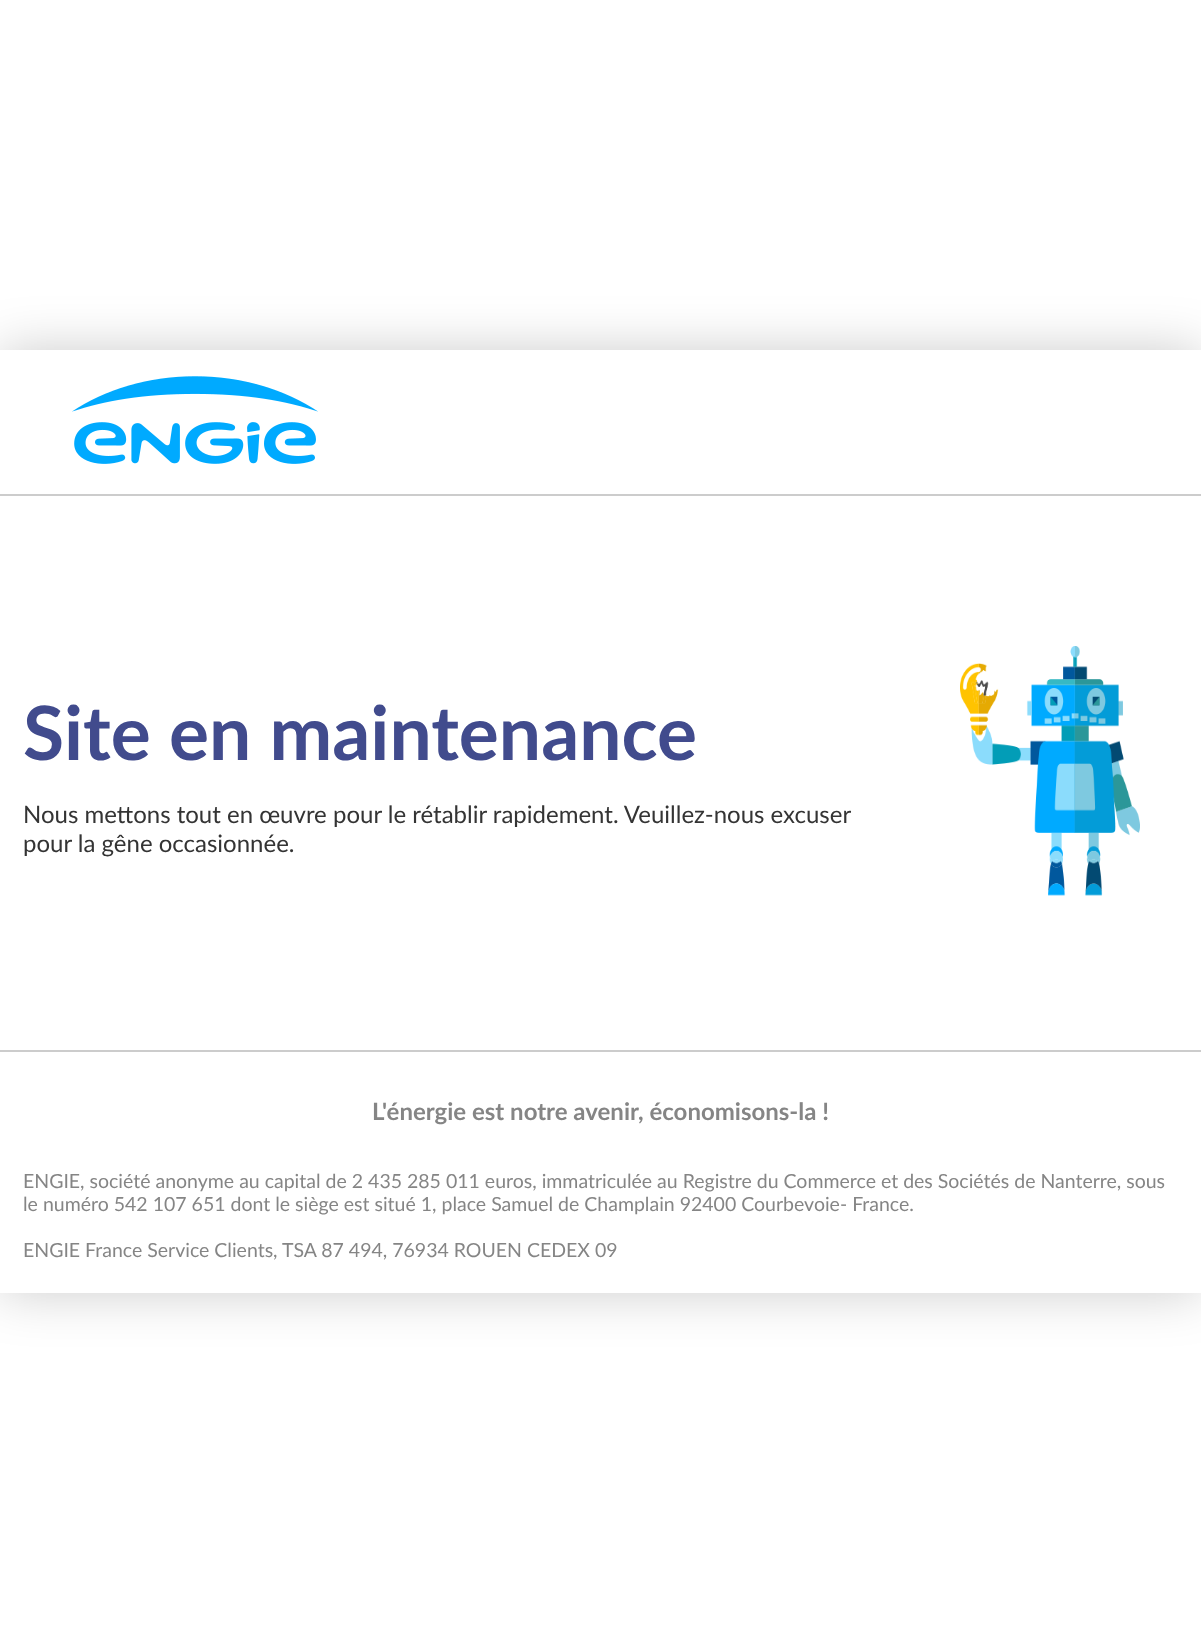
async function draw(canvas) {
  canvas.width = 1201
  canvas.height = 1642
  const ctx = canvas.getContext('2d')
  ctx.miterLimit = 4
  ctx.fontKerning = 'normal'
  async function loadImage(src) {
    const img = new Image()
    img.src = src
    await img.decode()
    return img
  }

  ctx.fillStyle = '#fff'
  ctx.fillRect(0, 0, 1201, 1642)
  ctx.save()
  ctx.beginPath()
  ctx.moveTo(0, 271)
  ctx.lineTo(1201, 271)
  ctx.lineTo(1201, 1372)
  ctx.lineTo(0, 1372)
  ctx.closePath()
  ctx.moveTo(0, 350)
  ctx.lineTo(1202, 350)
  ctx.lineTo(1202, 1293)
  ctx.lineTo(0, 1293)
  ctx.closePath()
  ctx.clip('evenodd')
  ctx.fillStyle = '#00000033'
  ctx.filter = 'blur(26px)'
  ctx.beginPath()
  ctx.rect(0, 350, 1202, 943)
  ctx.fill()
  ctx.filter = 'none'
  ctx.restore()
  ctx.fillStyle = '#ccc'
  ctx.fillRect(0, 494, 1201, 2)
  ctx.drawImage(await loadImage('image0.png'), 72, 376, 246, 88)
  ctx.font = 'bold 75px Lato'
  ctx.fillStyle = '#414b8d'
  ctx.fillText('Site en maintenance', 23, 760)
  ctx.font = '24px Lato'
  ctx.fillStyle = '#343434'
  ctx.fillText('Nous mettons tout en œuvre pour le rétablir rapidement. Veuillez-nous excuser', 23, 823)
  ctx.fillText('pour la gêne occasionnée.', 23, 852)
  ctx.drawImage(await loadImage('image1.png'), 960, 646, 180, 250)
  ctx.fillStyle = '#ccc'
  ctx.fillRect(0, 1050, 1201, 2)
  ctx.font = 'bold 24px Lato'
  ctx.fillStyle = '#858585'
  ctx.fillText('L\'énergie est notre avenir, économisons-la !', 372, 1120)
  ctx.font = '19.5px Lato'
  ctx.fillText('ENGIE, société anonyme au capital de 2 435 285 011 euros, immatriculée au Registre du Commerce et des Sociétés de Nanterre, sous', 23, 1188)
  ctx.fillText('le numéro 542 107 651 dont le siège est situé 1, place Samuel de Champlain 92400 Courbevoie- France.', 23, 1211)
  ctx.fillText('ENGIE France Service Clients, TSA 87 494, 76934 ROUEN CEDEX 09', 23, 1257)
}

draw(document.querySelector('canvas'))
